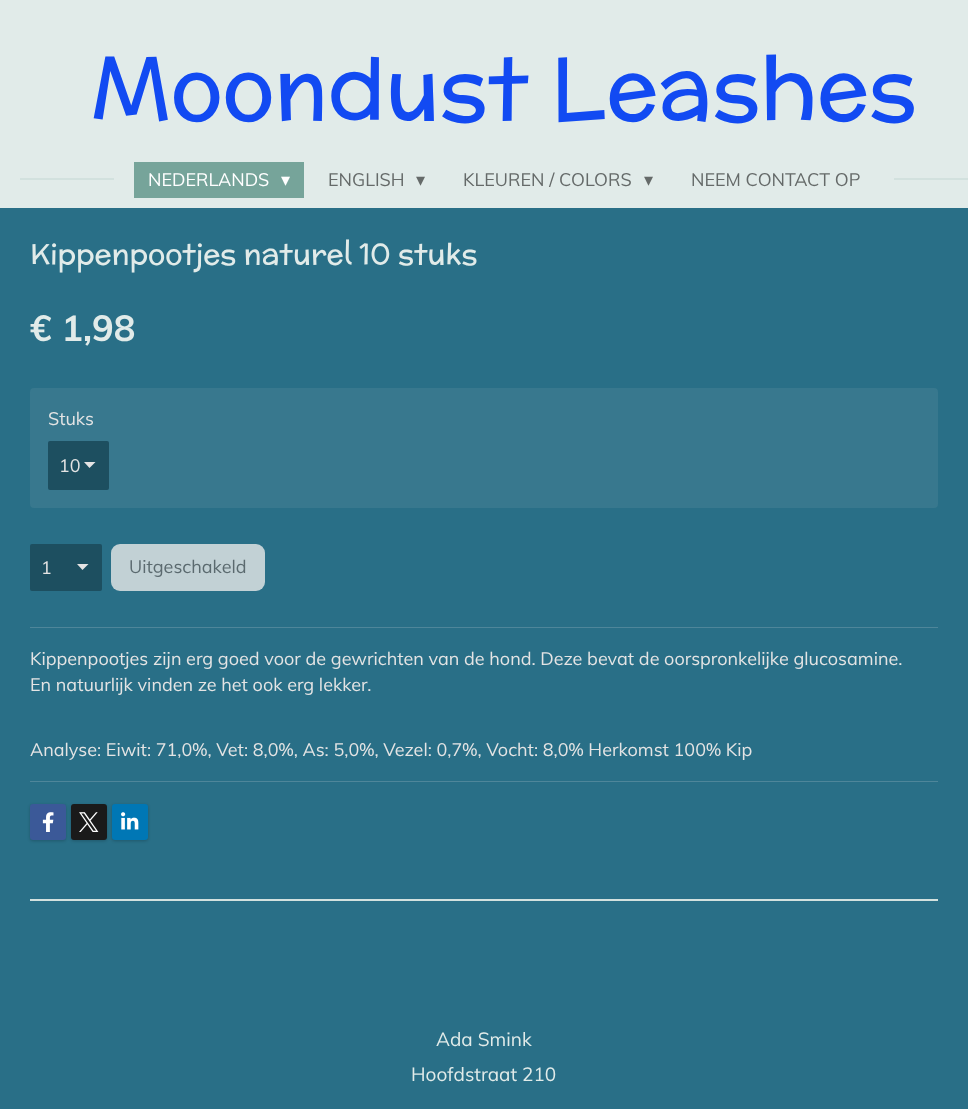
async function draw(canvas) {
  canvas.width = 968
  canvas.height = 1109
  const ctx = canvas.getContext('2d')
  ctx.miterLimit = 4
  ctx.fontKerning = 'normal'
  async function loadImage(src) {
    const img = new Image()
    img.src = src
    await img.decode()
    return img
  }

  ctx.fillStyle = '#296f87'
  ctx.fillRect(0, 0, 968, 1109)
  ctx.fillStyle = '#e1ebe9'
  ctx.fillRect(0, 0, 968, 208)
  ctx.font = '86.75px McLaren'
  ctx.fillStyle = '#124af2'
  ctx.fillText('Moondust Leashes', 91, 118)
  ctx.fillStyle = '#d2e1de'
  ctx.fillRect(20, 178, 94, 2)
  ctx.fillStyle = '#76a49a'
  ctx.fillRect(134, 162, 170, 36)
  ctx.font = '18px Muli'
  ctx.fillStyle = '#fff'
  ctx.fillText('NEDERLANDS', 148, 186)
  ctx.font = '18px DejaVu Sans'
  ctx.fillText('▾', 281, 186)
  ctx.font = '18px Muli'
  ctx.fillStyle = '#656a69'
  ctx.fillText('ENGLISH', 328, 186)
  ctx.font = '18px DejaVu Sans'
  ctx.fillText('▾', 416, 186)
  ctx.font = '18px Muli'
  ctx.fillText('KLEUREN / COLORS', 463, 186)
  ctx.font = '18px DejaVu Sans'
  ctx.fillText('▾', 644, 186)
  ctx.font = '18px Muli'
  ctx.fillText('NEEM CONTACT OP', 691, 186)
  ctx.fillStyle = '#d2e1de'
  ctx.fillRect(894, 178, 74, 2)
  ctx.font = '28.75px McLaren'
  ctx.fillStyle = '#e1ebe9'
  ctx.fillText('Kippenpootjes naturel 10 stuks', 30, 264)
  ctx.font = 'bold 36px Muli'
  ctx.fillText('€ 1,98', 30, 341)
  ctx.fillStyle = '#38788e'
  ctx.beginPath()
  ctx.roundRect(30, 388, 908, 120, 4)
  ctx.fill()
  ctx.font = '18px Muli'
  ctx.fillStyle = '#e4e4e4'
  ctx.fillText('Stuks', 48, 425)
  ctx.fillStyle = '#1d4f60'
  ctx.beginPath()
  ctx.roundRect(48, 441, 61, 49, 2)
  ctx.fill()
  ctx.fillStyle = '#e4e4e4'
  ctx.beginPath()
  ctx.moveTo(89.5, 468)
  ctx.lineTo(84, 462)
  ctx.lineTo(95.5, 462)
  ctx.closePath()
  ctx.fill()
  ctx.fillText('10', 59, 472)
  ctx.fillStyle = '#1d4f60'
  ctx.beginPath()
  ctx.roundRect(30, 544, 72, 47, 2)
  ctx.fill()
  ctx.fillStyle = '#e4e4e4'
  ctx.beginPath()
  ctx.moveTo(82.5, 570)
  ctx.lineTo(77, 564)
  ctx.lineTo(88.5, 564)
  ctx.closePath()
  ctx.fill()
  ctx.fillText('1', 41, 574)
  ctx.fillStyle = '#c2d1d5'
  ctx.beginPath()
  ctx.roundRect(111, 544, 154, 47, 9)
  ctx.fill()
  ctx.fillStyle = '#5b6a6f'
  ctx.fillText('Uitgeschakeld', 129, 573)
  ctx.fillStyle = '#4e869a'
  ctx.fillRect(30, 627, 908, 1)
  ctx.fillStyle = '#e4e4e4'
  ctx.fillText('Kippenpootjes zijn erg goed voor de gewrichten van de hond. Deze bevat de oorspronkelijke glucosamine.', 30, 665)
  ctx.fillText('En natuurlijk vinden ze het ook erg lekker.', 30, 691)
  ctx.fillText('Analyse: Eiwit: 71,0%, Vet: 8,0%, As: 5,0%, Vezel: 0,7%, Vocht: 8,0% Herkomst 100% Kip', 30, 756)
  ctx.fillStyle = '#4e869a'
  ctx.fillRect(30, 781, 908, 1)
  ctx.fillStyle = '#00000033'
  ctx.filter = 'blur(1.5px)'
  ctx.beginPath()
  ctx.roundRect(30, 805, 36, 36, 3)
  ctx.fill()
  ctx.filter = 'none'
  ctx.fillStyle = '#3b5998'
  ctx.beginPath()
  ctx.roundRect(30, 804, 36, 36, 3)
  ctx.fill()
  ctx.drawImage(await loadImage('image0.png'), 42, 812, 12, 20)
  ctx.fillStyle = '#00000033'
  ctx.filter = 'blur(1.5px)'
  ctx.beginPath()
  ctx.roundRect(71, 805, 36, 36, 3)
  ctx.fill()
  ctx.filter = 'none'
  ctx.fillStyle = '#1a1a1a'
  ctx.beginPath()
  ctx.roundRect(71, 804, 36, 36, 3)
  ctx.fill()
  ctx.drawImage(await loadImage('image1.png'), 79, 812, 20, 20)
  ctx.fillStyle = '#00000033'
  ctx.filter = 'blur(1.5px)'
  ctx.beginPath()
  ctx.roundRect(112, 805, 36, 36, 3)
  ctx.fill()
  ctx.filter = 'none'
  ctx.fillStyle = '#0077b5'
  ctx.beginPath()
  ctx.roundRect(112, 804, 36, 36, 3)
  ctx.fill()
  ctx.drawImage(await loadImage('image2.png'), 121, 812, 18, 18)
  ctx.fillStyle = '#d2e1de'
  ctx.fillRect(30, 899, 908, 2)
  ctx.font = '19px Muli'
  ctx.fillStyle = '#e1ebe9'
  ctx.fillText('Ada Smink', 436, 1046)
  ctx.fillText('Hoofdstraat 210', 411, 1081)
}

draw(document.querySelector('canvas'))
